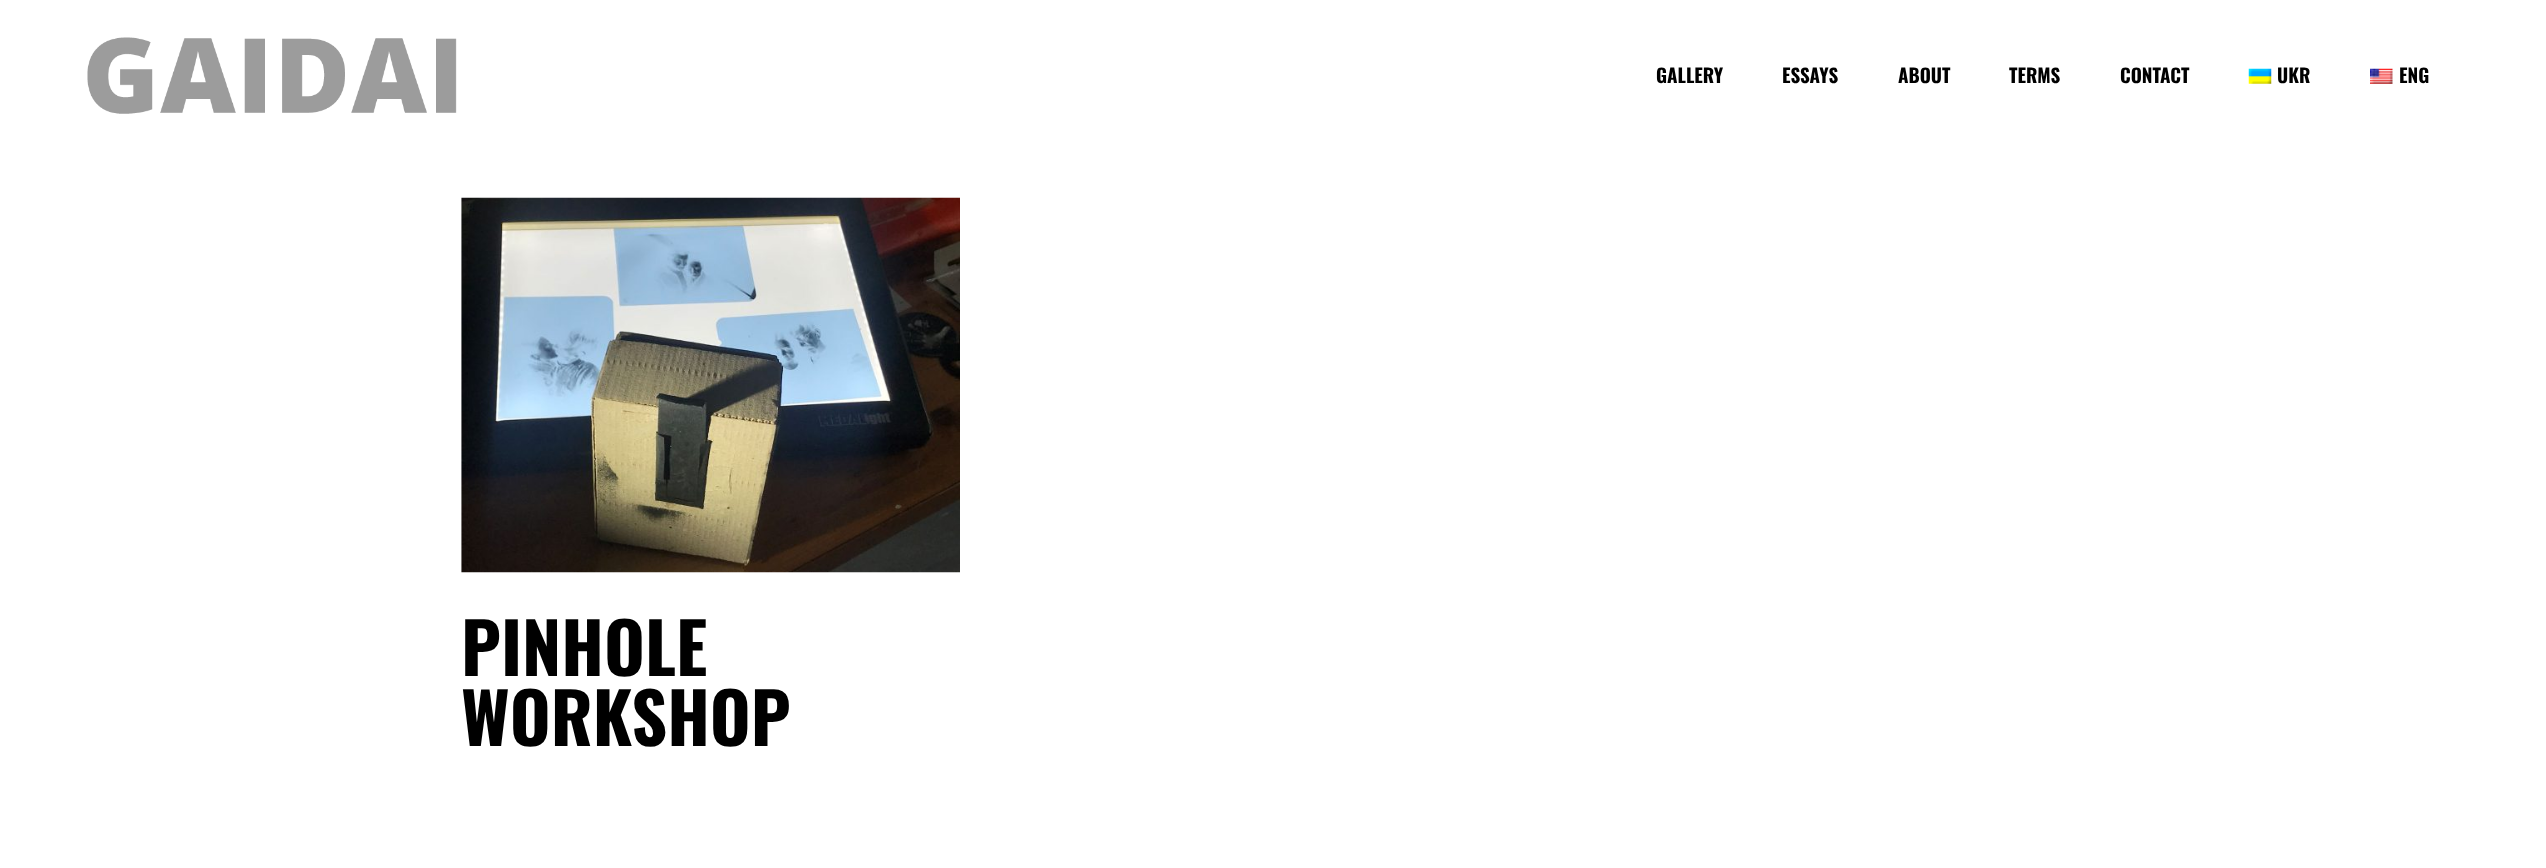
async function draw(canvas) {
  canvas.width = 2546
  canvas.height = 868
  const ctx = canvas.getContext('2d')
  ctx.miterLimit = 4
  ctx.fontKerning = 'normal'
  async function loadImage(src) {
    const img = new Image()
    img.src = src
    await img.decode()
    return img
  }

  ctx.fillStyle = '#fff'
  ctx.fillRect(0, 0, 2546, 868)
  ctx.drawImage(await loadImage('image0.png'), 87, 37, 370, 77)
  ctx.font = 'bold 19px Oswald'
  ctx.fillStyle = '#000'
  ctx.fillText('GALLERY', 1656, 83)
  ctx.fillText('ESSAYS', 1782, 83)
  ctx.fillText('ABOUT', 1898, 83)
  ctx.fillText('TERMS', 2009, 83)
  ctx.fillText('CONTACT', 2120, 83)
  ctx.drawImage(await loadImage('image1.png'), 2248, 68, 24, 16)
  ctx.fillText('UKR', 2277, 83)
  ctx.drawImage(await loadImage('image2.png'), 2370, 68, 23, 16)
  ctx.fillText('ENG', 2399, 83)
  ctx.drawImage(await loadImage('image3.png'), 461, 197, 499, 376)
  ctx.font = 'bold 70px Oswald'
  ctx.fillText('PINHOLE', 461, 676)
  ctx.fillText('WORKSHOP', 461, 746)
}

draw(document.querySelector('canvas'))
